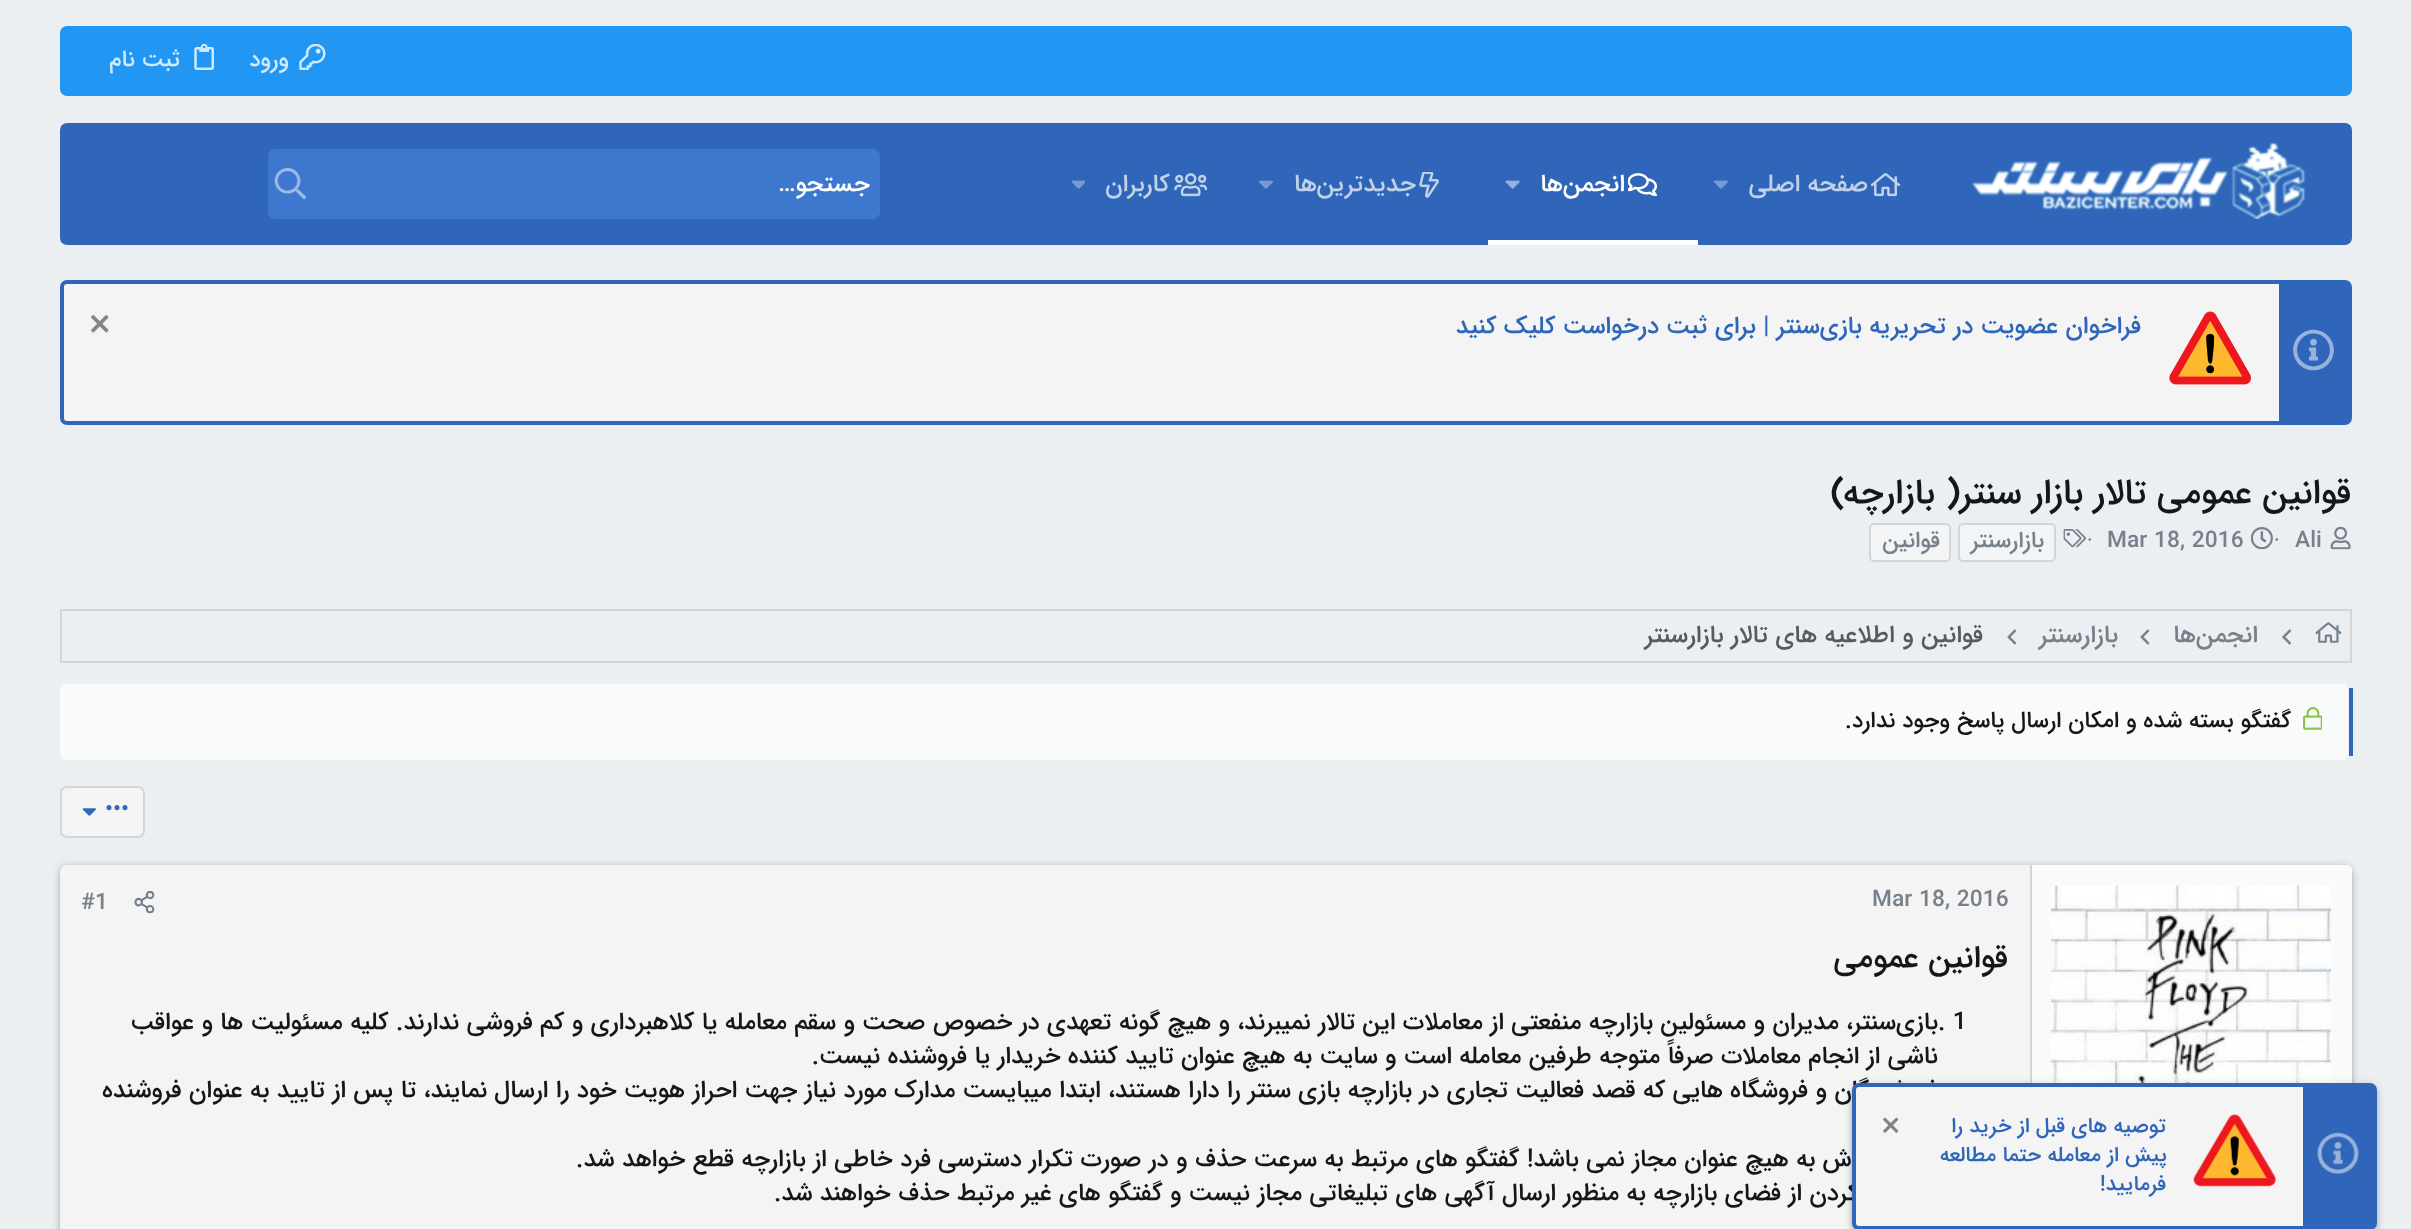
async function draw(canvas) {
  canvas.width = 2411
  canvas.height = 1229
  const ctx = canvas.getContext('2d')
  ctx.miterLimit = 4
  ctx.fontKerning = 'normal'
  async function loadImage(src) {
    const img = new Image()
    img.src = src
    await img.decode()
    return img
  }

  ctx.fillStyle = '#eceff1'
  ctx.fillRect(0, 0, 2411, 1229)
  ctx.fillStyle = '#2196f3'
  ctx.beginPath()
  ctx.roundRect(60, 26, 2292, 70, 7)
  ctx.fill()
  ctx.drawImage(await loadImage('image0.png'), 299, 44, 27, 26)
  ctx.direction = 'rtl'
  ctx.font = '500 22.75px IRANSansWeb'
  ctx.fillStyle = '#d3eafd'
  ctx.fillText('ورود', 289, 66)
  ctx.drawImage(await loadImage('image1.png'), 194, 44, 20, 26)
  ctx.fillText('ثبت نام', 180, 66)
  ctx.fillStyle = '#2f66b9'
  ctx.beginPath()
  ctx.roundRect(60, 123, 2292, 122, 7)
  ctx.fill()
  ctx.drawImage(await loadImage('image2.png'), 1972, 143, 334, 76)
  ctx.drawImage(await loadImage('image3.png'), 1871, 173, 30, 24)
  ctx.font = '500 24.5px IRANSansWeb'
  ctx.fillStyle = '#c1d1ea'
  ctx.fillText('صفحه اصلی', 1868, 191)
  ctx.drawImage(await loadImage('image4.png'), 1713, 180, 15, 9)
  ctx.fillStyle = '#fff'
  ctx.fillRect(1488, 240, 210, 5)
  ctx.drawImage(await loadImage('image5.png'), 1628, 173, 29, 24)
  ctx.fillText('انجمن‌ها', 1625, 191)
  ctx.drawImage(await loadImage('image6.png'), 1505, 180, 15, 9)
  ctx.drawImage(await loadImage('image7.png'), 1419, 172, 20, 26)
  ctx.fillStyle = '#c1d1ea'
  ctx.fillText('جدیدترین‌ها', 1416, 191)
  ctx.drawImage(await loadImage('image4.png'), 1258, 180, 15, 9)
  ctx.drawImage(await loadImage('image8.png'), 1174, 173, 34, 24)
  ctx.fillText('کاربران', 1170, 191)
  ctx.drawImage(await loadImage('image9.png'), 1071, 180, 14, 9)
  ctx.fillStyle = '#3e77ce'
  ctx.beginPath()
  ctx.roundRect(268, 149, 612, 70, 7)
  ctx.fill()
  ctx.fillStyle = '#fff'
  ctx.fillText('جستجو…', 870, 191)
  ctx.drawImage(await loadImage('image10.png'), 274, 168, 33, 32)
  ctx.fillStyle = '#f4f4f4'
  ctx.beginPath()
  ctx.roundRect(62, 282, 2288, 141, 5)
  ctx.fill()
  ctx.strokeStyle = '#2f66b9'
  ctx.lineWidth = 4
  ctx.stroke()
  ctx.fillStyle = '#2f66b9'
  ctx.fillRect(2279, 284, 69, 137)
  ctx.drawImage(await loadImage('image11.png'), 2293, 329, 41, 42)
  ctx.drawImage(await loadImage('image12.png'), 2169, 311, 82, 74)
  ctx.fillText('فراخوان عضویت در تحریریه بازی‌سنتر | برای ثبت درخواست کلیک کنید', 2141, 333)
  ctx.drawImage(await loadImage('image13.png'), 91, 315, 18, 18)
  ctx.font = '500 35px IRANSansWeb'
  ctx.fillStyle = '#141618'
  ctx.fillText('قوانین عمومی تالار بازار سنتر( بازارچه)', 2351, 503)
  ctx.drawImage(await loadImage('image14.png'), 2330, 527, 21, 23)
  ctx.direction = 'ltr'
  ctx.font = '500 22.75px IRANSansWeb'
  ctx.fillStyle = '#76818d'
  ctx.fillText('Ali', 2295, 547)
  ctx.font = '22.75px Liberation Serif'
  ctx.fillText('·', 2273, 547)
  ctx.drawImage(await loadImage('image15.png'), 2251, 527, 22, 23)
  ctx.font = '500 22.75px IRANSansWeb'
  ctx.fillText('Mar 18, 2016', 2107, 547)
  ctx.font = '22.75px Liberation Serif'
  ctx.fillText('·', 2086, 547)
  ctx.drawImage(await loadImage('image16.png'), 2063, 529, 23, 19)
  ctx.fillStyle = '#f3f4f5'
  ctx.beginPath()
  ctx.roundRect(1959, 524, 96, 37, 4)
  ctx.fill()
  ctx.strokeStyle = '#d5d5d5'
  ctx.lineWidth = 2
  ctx.stroke()
  ctx.direction = 'rtl'
  ctx.font = '500 22.75px IRANSansWeb'
  ctx.fillStyle = '#76818d'
  ctx.fillText('بازارسنتر', 2044, 547)
  ctx.fillStyle = '#f3f4f5'
  ctx.beginPath()
  ctx.roundRect(1870, 524, 80, 37, 4)
  ctx.fill()
  ctx.stroke()
  ctx.fillStyle = '#76818d'
  ctx.fillText('قوانین', 1940, 547)
  ctx.strokeRect(61, 610, 2290, 52)
  ctx.drawImage(await loadImage('image17.png'), 2315, 622, 27, 21)
  ctx.drawImage(await loadImage('image18.png'), 2282, 629, 9, 16)
  ctx.font = '500 24.5px IRANSansWeb'
  ctx.fillText('انجمن‌ها', 2258, 642)
  ctx.drawImage(await loadImage('image19.png'), 2140, 629, 10, 16)
  ctx.fillText('بازارسنتر', 2118, 642)
  ctx.drawImage(await loadImage('image20.png'), 2007, 629, 9, 16)
  ctx.fillStyle = '#535b63'
  ctx.fillText('قوانین و اطلاعیه های تالار بازارسنتر', 1983, 642)
  ctx.fillStyle = '#f9fafa'
  ctx.beginPath()
  ctx.moveTo(66, 684)
  ctx.lineTo(2345, 684)
  ctx.bezierCurveTo(2347, 684, 2348, 687, 2348, 691)
  ctx.lineTo(2348, 752)
  ctx.bezierCurveTo(2348, 756, 2347, 760, 2345, 760)
  ctx.lineTo(66, 760)
  ctx.bezierCurveTo(63, 760, 60, 756, 60, 752)
  ctx.lineTo(60, 691)
  ctx.bezierCurveTo(60, 687, 63, 684, 66, 684)
  ctx.closePath()
  ctx.fill()
  ctx.fillStyle = '#2f66b9'
  ctx.fillRect(2349, 688, 4, 68)
  ctx.drawImage(await loadImage('image21.png'), 2303, 707, 19, 23)
  ctx.font = '500 22.75px IRANSansWeb'
  ctx.fillStyle = '#141618'
  ctx.fillText('گفتگو بسته شده و امکان ارسال پاسخ وجود ندارد.', 2291, 727)
  ctx.fillStyle = '#f4f4f4'
  ctx.beginPath()
  ctx.roundRect(61, 787, 83, 50, 6)
  ctx.fill()
  ctx.stroke()
  ctx.direction = 'ltr'
  ctx.fillStyle = '#2f66b9'
  ctx.fillText('•••', 105, 816)
  ctx.drawImage(await loadImage('image22.png'), 82, 808, 14, 8)
  ctx.fillStyle = '#00000033'
  ctx.filter = 'blur(4.5px)'
  ctx.beginPath()
  ctx.roundRect(60, 866, 2292, 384, 7)
  ctx.fill()
  ctx.filter = 'none'
  ctx.fillStyle = '#00000024'
  ctx.filter = 'blur(2px)'
  ctx.beginPath()
  ctx.roundRect(60, 868, 2292, 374, 7)
  ctx.fill()
  ctx.filter = 'none'
  ctx.fillStyle = '#f4f4f4'
  ctx.beginPath()
  ctx.roundRect(60, 865, 2292, 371, 7)
  ctx.fill()
  ctx.fillStyle = '#f9fafa'
  ctx.beginPath()
  ctx.moveTo(2030, 865)
  ctx.lineTo(2347, 865)
  ctx.bezierCurveTo(2350, 865, 2352, 867, 2352, 870)
  ctx.lineTo(2352, 1229)
  ctx.bezierCurveTo(2352, 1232, 2350, 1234, 2347, 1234)
  ctx.lineTo(2030, 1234)
  ctx.closePath()
  ctx.fill()
  ctx.fillStyle = '#d5d5d5'
  ctx.fillRect(2030, 865, 2, 218)
  ctx.drawImage(await loadImage('image23.png'), 2051, 885, 280, 198)
  ctx.fillStyle = '#76818d'
  ctx.fillText('Mar 18, 2016', 1872, 906)
  ctx.drawImage(await loadImage('image24.png'), 134, 891, 21, 23)
  ctx.fillText('#1', 81, 909)
  ctx.direction = 'rtl'
  ctx.font = '500 31.5px IRANSansWeb'
  ctx.fillStyle = '#141618'
  ctx.fillText('قوانین عمومی', 2008, 967)
  ctx.direction = 'ltr'
  ctx.font = '500 24.5px IRANSansWeb'
  ctx.fillText('. 1', 1938, 1029)
  ctx.direction = 'rtl'
  ctx.fillText('بازی‌سنتر، مدیران و مسئولین بازارچه منفعتی از معاملات این تالار نمیبرند، و هیچ گونه تعهدی در خصوص صحت و سقم معامله یا کلاهبرداری و کم فروشی ندارند. کلیه مسئولیت ها و عواقب', 1938, 1029)
  ctx.fillText('ناشی از انجام معاملات صرفاً متوجه طرفین معامله است و سایت به هیچ عنوان تایید کننده خریدار یا فروشنده نیست.', 1938, 1063)
  ctx.fillText('فروشندگان و فروشگاه هایی که قصد فعالیت تجاری در بازارچه بازی سنتر را دارا هستند، ابتدا میبایست مدارک مورد نیاز جهت احراز هویت خود را ارسال نمایند، تا پس از تایید به عنوان فروشنده', 1938, 1097)
  ctx.fillText('پیش فروش به هیچ عنوان مجاز نمی باشد! گفتگو های مرتبط به سرعت حذف و در صورت تکرار دسترسی فرد خاطی از بازارچه قطع خواهد شد.', 1938, 1166)
  ctx.fillText('استفاده کردن از فضای بازارچه به منظور ارسال آگهی های تبلیغاتی مجاز نیست و گفتگو های غیر مرتبط حذف خواهند شد.', 1938, 1200)
  ctx.fillStyle = '#00000033'
  ctx.filter = 'blur(4.5px)'
  ctx.beginPath()
  ctx.roundRect(1852, 1085, 525, 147, 7)
  ctx.fill()
  ctx.filter = 'none'
  ctx.fillStyle = '#00000024'
  ctx.filter = 'blur(2px)'
  ctx.beginPath()
  ctx.roundRect(1852, 1087, 525, 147, 7)
  ctx.fill()
  ctx.filter = 'none'
  ctx.fillStyle = '#f4f4f4'
  ctx.beginPath()
  ctx.roundRect(1854, 1085, 521, 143, 5)
  ctx.fill()
  ctx.strokeStyle = '#2f66b9'
  ctx.lineWidth = 4
  ctx.stroke()
  ctx.fillStyle = '#2f66b9'
  ctx.fillRect(2303, 1087, 70, 139)
  ctx.drawImage(await loadImage('image25.png'), 2317, 1132, 42, 43)
  ctx.drawImage(await loadImage('image26.png'), 2193, 1114, 83, 73)
  ctx.font = '500 21px IRANSansWeb'
  ctx.fillText('توصیه های قبل از خرید را', 2166, 1132)
  ctx.drawImage(await loadImage('image27.png'), 1883, 1117, 16, 16)
  ctx.fillText('پیش از معامله حتما مطالعه', 2167, 1161)
  ctx.fillText('فرمایید!', 2166, 1190)
}

draw(document.querySelector('canvas'))
